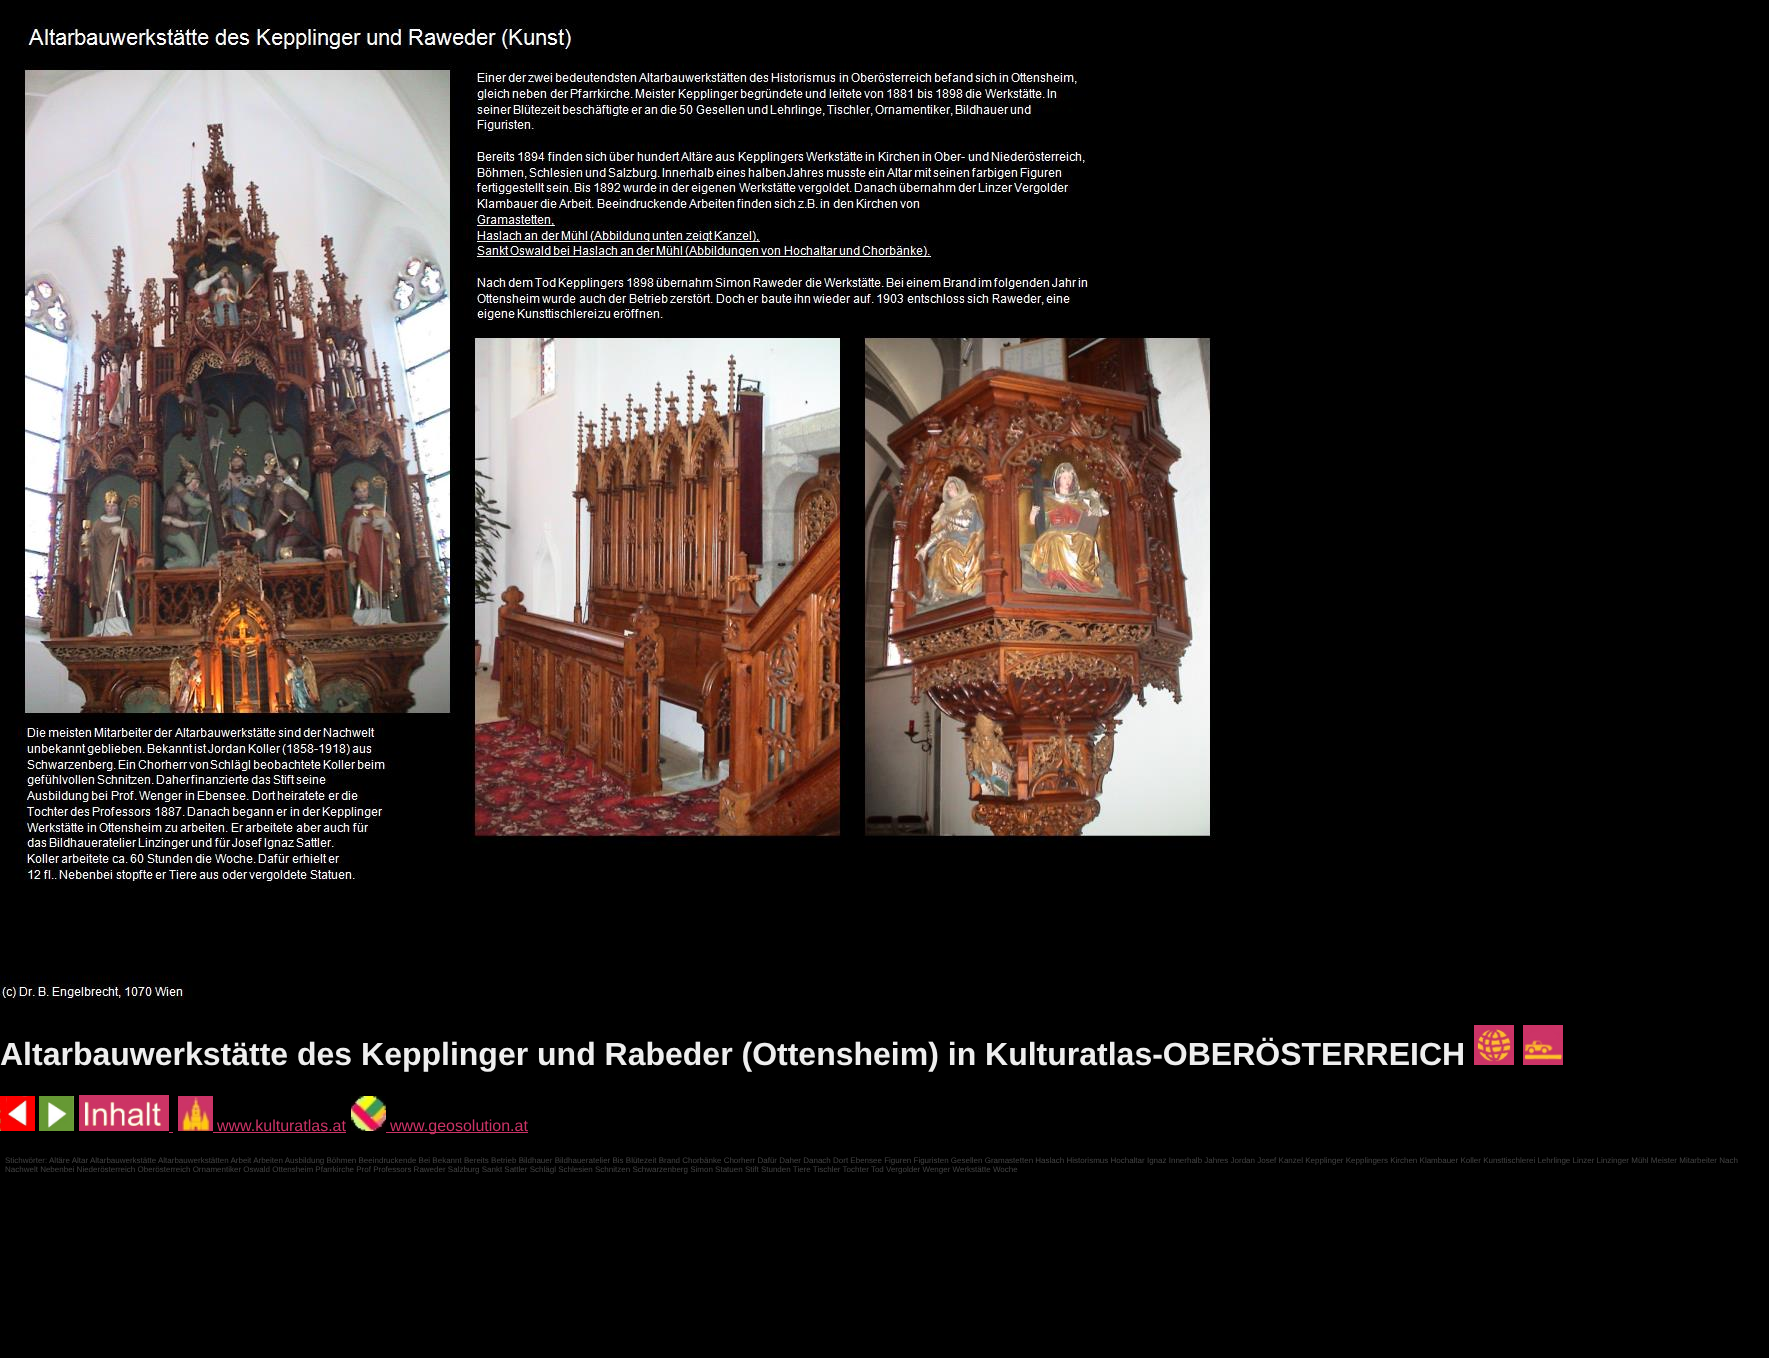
async function draw(canvas) {
  canvas.width = 1769
  canvas.height = 1358
  const ctx = canvas.getContext('2d')
  ctx.miterLimit = 4
  ctx.fontKerning = 'normal'
  async function loadImage(src) {
    const img = new Image()
    img.src = src
    await img.decode()
    return img
  }

  ctx.fillStyle = '#000'
  ctx.fillRect(0, 0, 1769, 1358)
  ctx.drawImage(await loadImage('image0.png'), 0, 16, 1216, 984)
  ctx.font = 'bold 32px Liberation Sans'
  ctx.fillStyle = '#eee'
  ctx.fillText('Altarbauwerkstätte des Kepplinger und Rabeder (Ottensheim) in Kulturatlas-OBERÖSTERREICH', 0, 1065)
  ctx.drawImage(await loadImage('image1.png'), 1474, 1025, 40, 40)
  ctx.drawImage(await loadImage('image2.png'), 1523, 1025, 40, 40)
  ctx.drawImage(await loadImage('image3.png'), 0, 1096, 35, 35)
  ctx.drawImage(await loadImage('image4.png'), 39, 1096, 35, 35)
  ctx.drawImage(await loadImage('image5.png'), 79, 1095, 90, 36)
  ctx.fillStyle = '#c36'
  ctx.fillRect(169, 1132, 4, 1)
  ctx.drawImage(await loadImage('image6.png'), 178, 1096, 35, 35)
  ctx.font = '16px Liberation Sans'
  ctx.fillText('www.kulturatlas.at', 217, 1131)
  ctx.fillRect(213, 1132, 133, 1)
  ctx.drawImage(await loadImage('image7.png'), 351, 1096, 35, 35)
  ctx.fillRect(386, 1132, 142, 1)
  ctx.fillText('www.geosolution.at', 390, 1131)
  ctx.font = '8px Liberation Sans'
  ctx.fillStyle = '#444'
  ctx.fillText('Stichwörter: Altäre Altar Altarbauwerkstätte Altarbauwerkstätten Arbeit Arbeiten Ausbildung Böhmen Beeindruckende Bei Bekannt Bereits Betrieb Bildhauer Bildhaueratelier Bis Blütezeit Brand Chorbänke Chorherr Dafür Daher Danach Dort Ebensee Figuren Figuristen Gesellen Gramastetten Haslach Historismus Hochaltar Ignaz Innerhalb Jahres Jordan Josef Kanzel Kepplinger Kepplingers Kirchen Klambauer Koller Kunsttischlerei Lehrlinge Linzer Linzinger Mühl Meister Mitarbeiter Nach', 5, 1163)
  ctx.fillText('Nachwelt Nebenbei Niederösterreich Oberösterreich Ornamentiker Oswald Ottensheim Pfarrkirche Prof Professors Raweder Salzburg Sankt Sattler Schlägl Schlesien Schnitzen Schwarzenberg Simon Statuen Stift Stunden Tiere Tischler Tochter Tod Vergolder Wenger Werkstätte Woche', 5, 1172)
}

draw(document.querySelector('canvas'))
